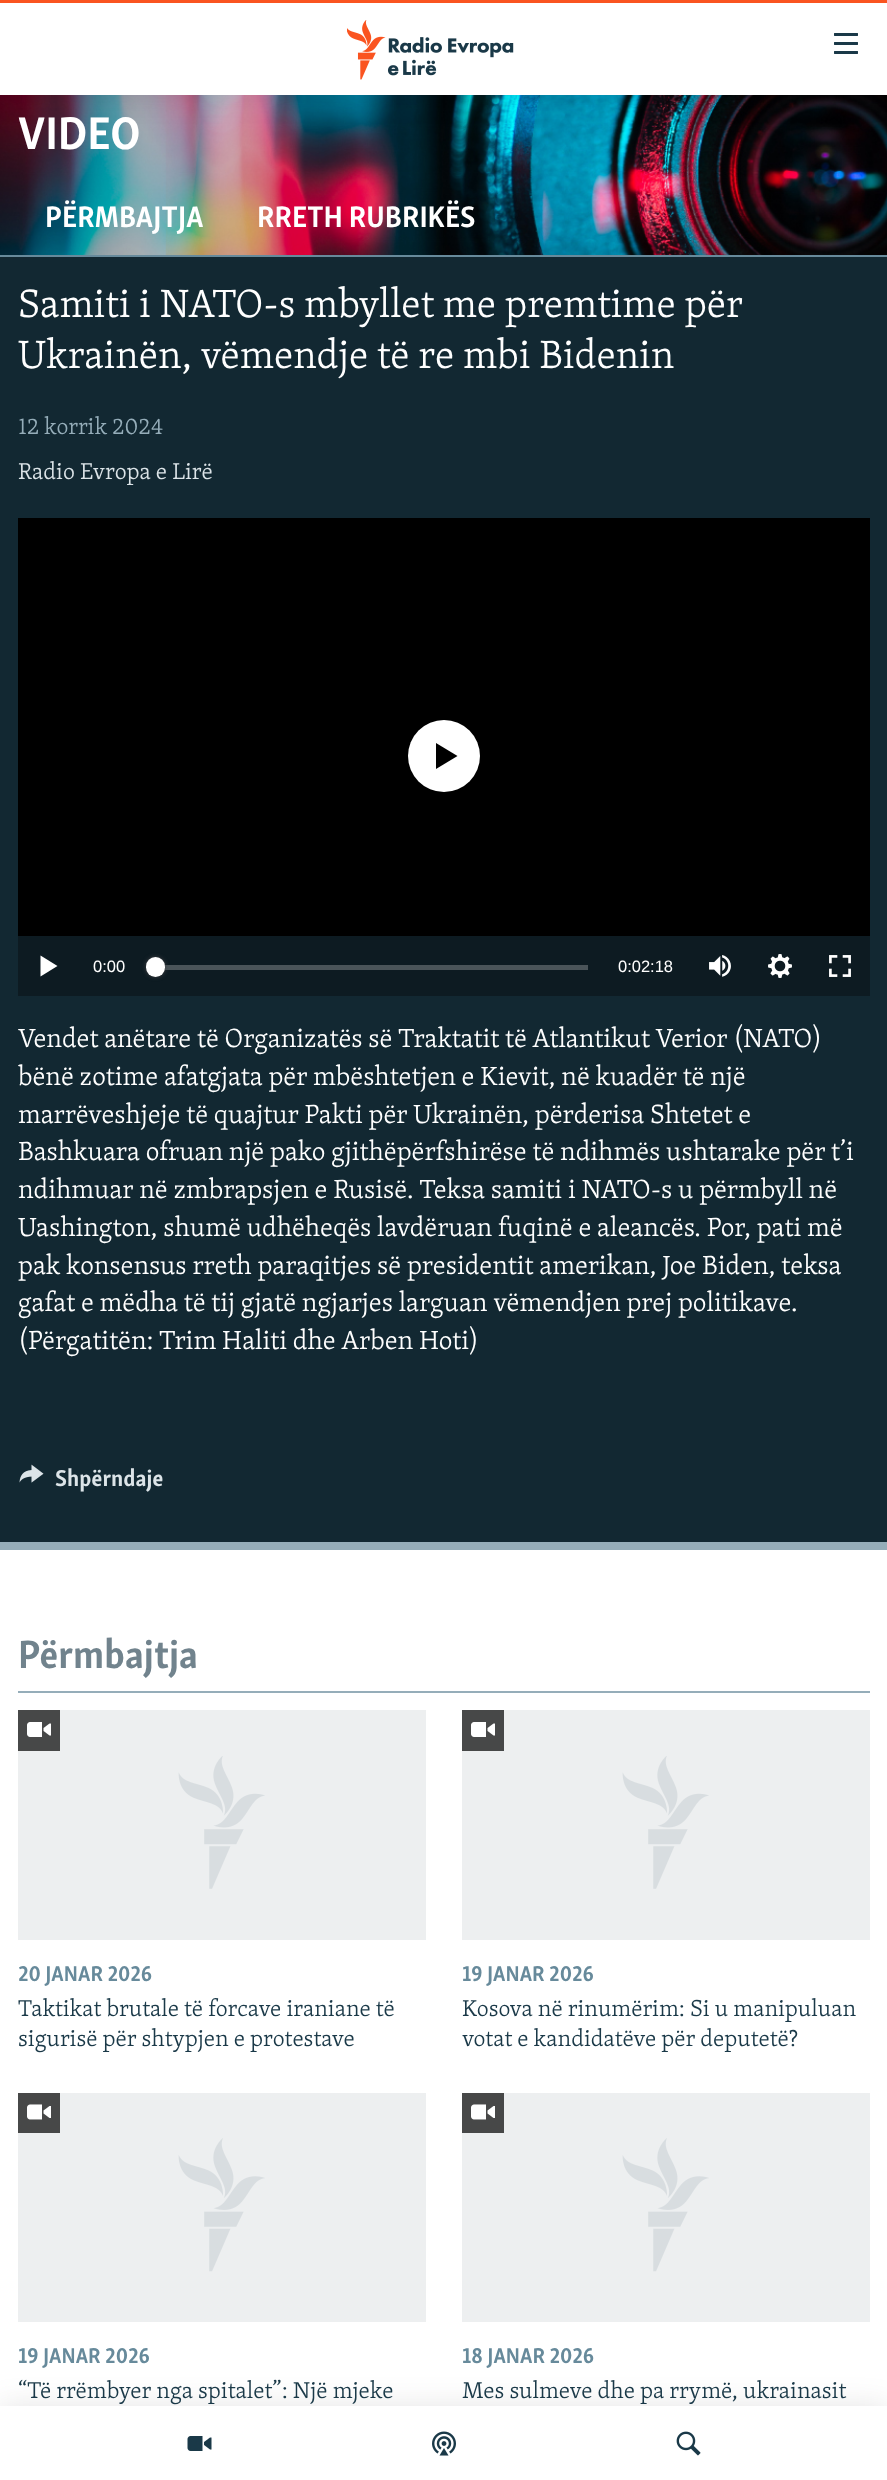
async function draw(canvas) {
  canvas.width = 887
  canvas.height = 2480
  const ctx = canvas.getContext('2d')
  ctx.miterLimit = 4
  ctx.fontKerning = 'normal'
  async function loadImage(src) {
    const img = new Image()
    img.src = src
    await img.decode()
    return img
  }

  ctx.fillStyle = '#fff'
  ctx.fillRect(0, 0, 887, 2480)
  ctx.drawImage(await loadImage('image5.png'), 0, 95, 887, 160)
  ctx.fillStyle = '#0000001a'
  ctx.filter = 'blur(15px)'
  ctx.beginPath()
  ctx.rect(0, 0, 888, 95)
  ctx.fill()
  ctx.filter = 'none'
  ctx.fillStyle = '#fff'
  ctx.fillRect(0, 3, 887, 92)
  ctx.fillStyle = '#fa5420'
  ctx.fillRect(0, 0, 887, 3)
  ctx.drawImage(await loadImage('image0.png'), 347, 20, 167, 60)
  ctx.drawImage(await loadImage('image1.png'), 834, 33, 24, 21)
  ctx.fillStyle = '#0000001a'
  ctx.filter = 'blur(15px)'
  ctx.beginPath()
  ctx.rect(0, 2406, 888, 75)
  ctx.fill()
  ctx.filter = 'none'
  ctx.fillStyle = '#fff'
  ctx.fillRect(0, 2406, 887, 74)
  ctx.drawImage(await loadImage('image2.png'), 187, 2436, 25, 15)
  ctx.drawImage(await loadImage('image3.png'), 432, 2431, 24, 25)
  ctx.drawImage(await loadImage('image4.png'), 676, 2431, 25, 25)
  ctx.font = 'bold 47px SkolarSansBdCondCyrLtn'
  ctx.fillText('VIDEO', 18, 149)
  ctx.font = 'bold 30.5px SkolarSansBdCondCyrLtn'
  ctx.fillText('PËRMBAJTJA', 45, 227)
  ctx.fillText('RRETH RUBRIKËS', 257, 227)
  ctx.fillStyle = '#122832'
  ctx.fillRect(0, 257, 887, 1285)
  ctx.fillStyle = '#678a9b'
  ctx.fillRect(0, 255, 887, 2)
  ctx.fillStyle = '#95adb9'
  ctx.fillRect(0, 1542, 887, 8)
  ctx.font = '300 40.5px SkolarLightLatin'
  ctx.fillStyle = '#fff'
  ctx.fillText('Samiti i NATO-s mbyllet me premtime për', 18, 317)
  ctx.fillText('Ukrainën, vëmendje të re mbi Bidenin', 18, 368)
  ctx.font = '300 23.6px SkolarLightLatin'
  ctx.fillStyle = '#95adb9'
  ctx.fillText('12 korrik 2024', 18, 434)
  ctx.fillStyle = '#dce4e8'
  ctx.fillText('Radio Evropa e Lirë', 18, 479)
  ctx.fillStyle = '#000'
  ctx.fillRect(18, 518, 852, 418)
  ctx.fillStyle = '#fff'
  ctx.beginPath()
  ctx.arc(444, 756, 36, 0, 2 * Math.PI)
  ctx.fill()
  ctx.fillStyle = '#000'
  ctx.beginPath()
  ctx.moveTo(436, 769)
  ctx.lineTo(457.5, 756)
  ctx.lineTo(436, 743)
  ctx.closePath()
  ctx.fill()
  ctx.fillStyle = '#0d1b22'
  ctx.fillRect(18, 936, 852, 60)
  ctx.fillStyle = '#fff'
  ctx.beginPath()
  ctx.moveTo(40.5, 976.5)
  ctx.lineTo(57.5, 966)
  ctx.lineTo(40.5, 955.5)
  ctx.closePath()
  ctx.fill()
  ctx.font = '16.5px Liberation Sans'
  ctx.fillText('0:00', 93, 972)
  ctx.fillStyle = '#4a5459'
  ctx.fillRect(164, 965, 424, 5)
  ctx.fillStyle = '#414144'
  ctx.filter = 'blur(2px)'
  ctx.beginPath()
  ctx.roundRect(146, 957, 19, 20, 9.5)
  ctx.fill()
  ctx.filter = 'none'
  ctx.fillStyle = '#fff'
  ctx.beginPath()
  ctx.roundRect(146, 957, 19, 20, 9.5)
  ctx.fill()
  ctx.fillText('0:02:18', 618, 972)
  ctx.drawImage(await loadImage('image6.png'), 709, 955, 22, 22)
  ctx.drawImage(await loadImage('image7.png'), 768, 954, 24, 24)
  ctx.drawImage(await loadImage('image8.png'), 829, 955, 22, 22)
  ctx.font = '300 27px SkolarLightLatin'
  ctx.fillText('Vendet anëtare të Organizatës së Traktatit të Atlantikut Verior (NATO)', 18, 1047)
  ctx.fillText('bënë zotime afatgjata për mbështetjen e Kievit, në kuadër të një', 18, 1085)
  ctx.fillText('marrëveshjeje të quajtur Pakti për Ukrainën, përderisa Shtetet e', 18, 1123)
  ctx.fillText('Bashkuara ofruan një pako gjithëpërfshirëse të ndihmës ushtarake për t’i', 18, 1160)
  ctx.fillText('ndihmuar në zmbrapsjen e Rusisë. Teksa samiti i NATO-s u përmbyll në', 18, 1198)
  ctx.fillText('Uashington, shumë udhëheqës lavdëruan fuqinë e aleancës. Por, pati më', 18, 1236)
  ctx.fillText('pak konsensus rreth paraqitjes së presidentit amerikan, Joe Biden, teksa', 18, 1274)
  ctx.fillText('gafat e mëdha të tij gjatë ngjarjes larguan vëmendjen prej politikave.', 18, 1311)
  ctx.fillText('(Përgatitën: Trim Haliti dhe Arben Hoti)', 18, 1349)
  ctx.drawImage(await loadImage('image9.png'), 19, 1464, 25, 19)
  ctx.font = 'bold 23.6px SkolarSansBdCondCyrLtn'
  ctx.fillStyle = '#dce4e8'
  ctx.fillText('Shpërndaje', 55, 1486)
  ctx.fillStyle = '#95adb9'
  ctx.fillRect(18, 1691, 852, 2)
  ctx.font = 'bold 40.5px SkolarSansBdCondCyrLtn'
  ctx.fillStyle = '#71838d'
  ctx.fillText('Përmbajtja', 18, 1668)
  ctx.fillStyle = '#edeff0'
  ctx.fillRect(18, 1710, 408, 230)
  ctx.drawImage(await loadImage('image10.png'), 178, 1756, 87, 133)
  ctx.fillStyle = '#474848'
  ctx.fillRect(18, 1710, 42, 41)
  ctx.drawImage(await loadImage('image11.png'), 27, 1722, 24, 15)
  ctx.font = 'bold 22px SkolarSansBdCondCyrLtn'
  ctx.fillStyle = '#678a9b'
  ctx.fillText('20 JANAR 2026', 18, 1981)
  ctx.font = '300 23.6px SkolarLightLatin'
  ctx.fillStyle = '#1a3948'
  ctx.fillText('Taktikat brutale të forcave iraniane të', 18, 2016)
  ctx.fillText('sigurisë për shtypjen e protestave', 18, 2046)
  ctx.fillStyle = '#edeff0'
  ctx.fillRect(462, 1710, 408, 230)
  ctx.drawImage(await loadImage('image10.png'), 622, 1756, 87, 133)
  ctx.fillStyle = '#474848'
  ctx.fillRect(462, 1710, 42, 41)
  ctx.drawImage(await loadImage('image11.png'), 471, 1722, 24, 15)
  ctx.font = 'bold 22px SkolarSansBdCondCyrLtn'
  ctx.fillStyle = '#678a9b'
  ctx.fillText('19 JANAR 2026', 462, 1981)
  ctx.font = '300 23.6px SkolarLightLatin'
  ctx.fillStyle = '#1a3948'
  ctx.fillText('Kosova në rinumërim: Si u manipuluan', 462, 2016)
  ctx.fillText('votat e kandidatëve për deputetë?', 462, 2046)
  ctx.fillStyle = '#edeff0'
  ctx.fillRect(18, 2093, 408, 229)
  ctx.drawImage(await loadImage('image12.png'), 178, 2138, 87, 134)
  ctx.fillStyle = '#474848'
  ctx.fillRect(18, 2093, 42, 40)
  ctx.drawImage(await loadImage('image13.png'), 27, 2104, 24, 16)
  ctx.font = 'bold 22px SkolarSansBdCondCyrLtn'
  ctx.fillStyle = '#678a9b'
  ctx.fillText('19 JANAR 2026', 18, 2363)
  ctx.font = '300 23.6px SkolarLightLatin'
  ctx.fillStyle = '#1a3948'
  ctx.fillText('“Të rrëmbyer nga spitalet”: Një mjeke', 18, 2398)
  ctx.fillStyle = '#edeff0'
  ctx.fillRect(462, 2093, 408, 229)
  ctx.drawImage(await loadImage('image12.png'), 622, 2138, 87, 134)
  ctx.fillStyle = '#474848'
  ctx.fillRect(462, 2093, 42, 40)
  ctx.drawImage(await loadImage('image13.png'), 471, 2104, 24, 16)
  ctx.font = 'bold 22px SkolarSansBdCondCyrLtn'
  ctx.fillStyle = '#678a9b'
  ctx.fillText('18 JANAR 2026', 462, 2363)
  ctx.font = '300 23.6px SkolarLightLatin'
  ctx.fillStyle = '#1a3948'
  ctx.fillText('Mes sulmeve dhe pa rrymë, ukrainasit', 462, 2398)
}

draw(document.querySelector('canvas'))
